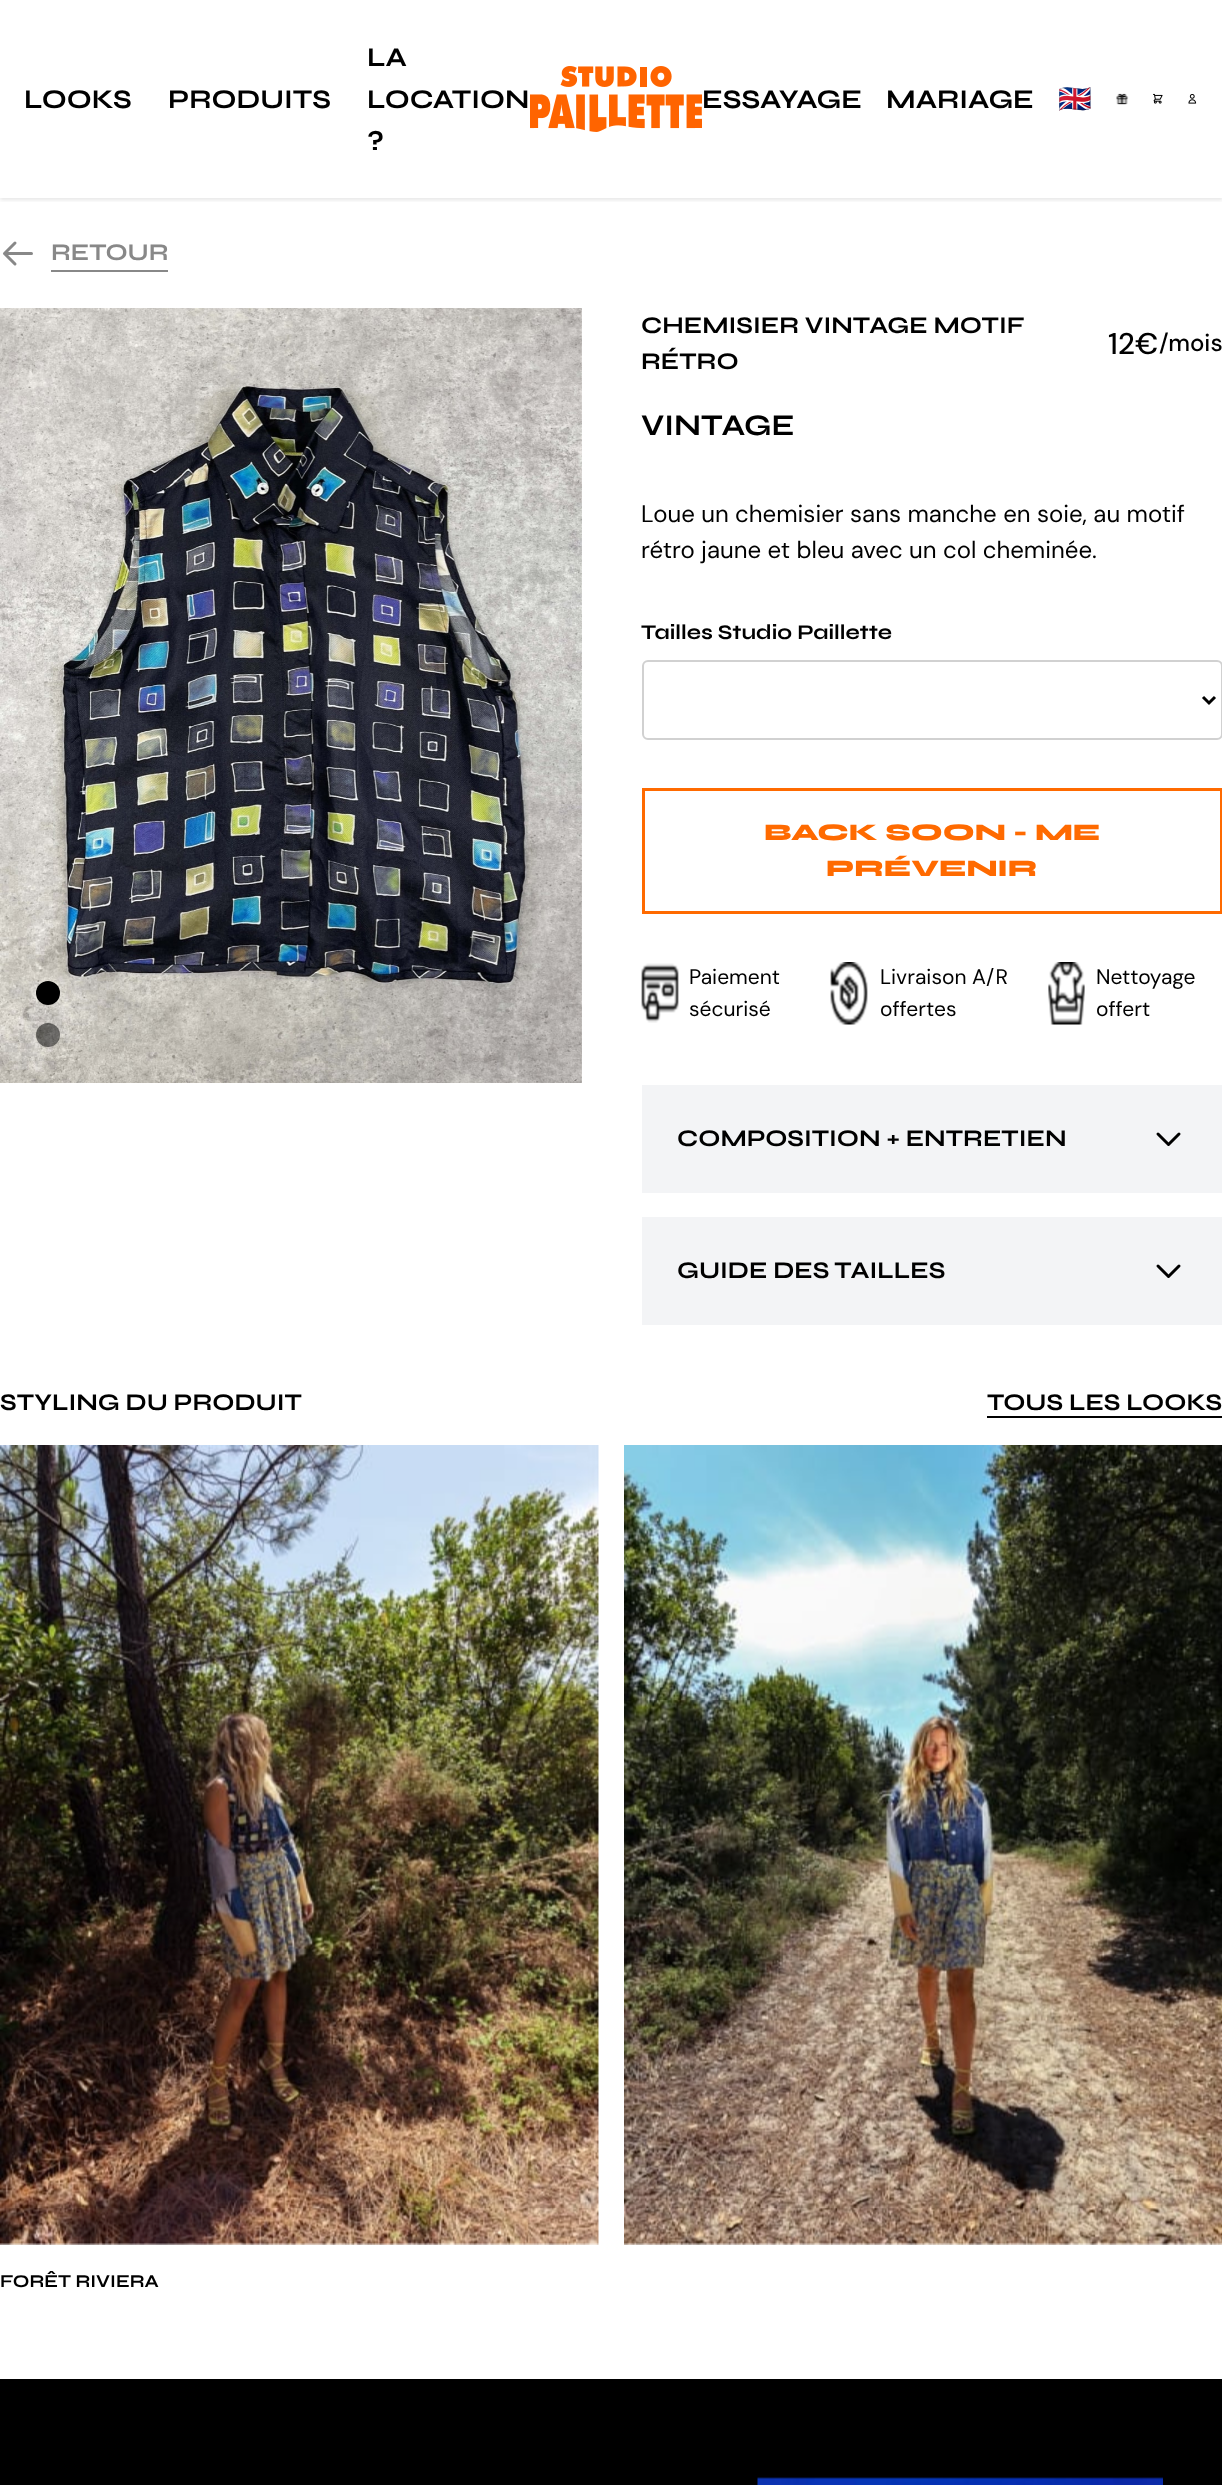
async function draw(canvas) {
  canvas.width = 1222
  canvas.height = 2485
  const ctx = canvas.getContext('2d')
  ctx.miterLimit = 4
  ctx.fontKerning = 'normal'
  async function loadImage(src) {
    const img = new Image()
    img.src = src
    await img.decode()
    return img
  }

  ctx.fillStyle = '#fff'
  ctx.fillRect(0, 0, 1222, 2485)
  ctx.save()
  ctx.beginPath()
  ctx.rect(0, 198, 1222, 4)
  ctx.clip()
  ctx.fillStyle = '#0000001a'
  ctx.filter = 'blur(2px)'
  ctx.beginPath()
  ctx.rect(0, 2, 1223, 198)
  ctx.fill()
  ctx.filter = 'none'
  ctx.restore()
  ctx.font = 'bold 27px Syne'
  ctx.fillStyle = '#000'
  ctx.fillText('LOOKS', 24, 108)
  ctx.fillText('PRODUITS', 168, 108)
  ctx.fillText('LA', 367, 66)
  ctx.fillText('LOCATION', 367, 108)
  ctx.fillText('?', 367, 150)
  ctx.drawImage(await loadImage('image0.png'), 530, 66, 172, 66)
  ctx.fillText('ESSAYAGE', 702, 108)
  ctx.fillText('MARIAGE', 886, 108)
  ctx.font = 'bold 27px Noto Color Emoji'
  ctx.fillText('🇬🇧', 1058, 108)
  ctx.drawImage(await loadImage('image1.png'), 1116, 93, 13, 12)
  ctx.drawImage(await loadImage('image2.png'), 1153, 93, 10, 11)
  ctx.drawImage(await loadImage('image3.png'), 1188, 94, 9, 10)
  ctx.beginPath()
  ctx.moveTo(15, 264)
  ctx.lineTo(4.5, 253.5)
  ctx.moveTo(4.5, 253.5)
  ctx.lineTo(15, 243)
  ctx.moveTo(4.5, 253.5)
  ctx.lineTo(31.5, 253.5)
  ctx.strokeStyle = '#888'
  ctx.lineWidth = 3
  ctx.lineCap = 'round'
  ctx.lineJoin = 'round'
  ctx.stroke()
  ctx.fillStyle = '#888'
  ctx.fillRect(51, 270, 117, 2)
  ctx.font = 'bold 24px Syne'
  ctx.fillText('RETOUR', 51, 260)
  ctx.drawImage(await loadImage('image4.png'), 0, 308, 582, 775)
  ctx.drawImage(await loadImage('image5.png'), 158, 1082, 181, 1)
  ctx.fillStyle = '#000'
  ctx.beginPath()
  ctx.arc(48, 993, 12, 0, 2 * Math.PI)
  ctx.fill()
  ctx.fillStyle = '#00000080'
  ctx.beginPath()
  ctx.arc(48, 1035, 12, 0, 2 * Math.PI)
  ctx.fill()
  ctx.fillStyle = '#000'
  ctx.fillText('CHEMISIER VINTAGE MOTIF', 641, 333)
  ctx.fillText('RÉTRO', 641, 369)
  ctx.font = '500 30px DM Sans'
  ctx.fillText('12€', 1108, 354)
  ctx.font = '500 24px DM Sans'
  ctx.fillText('/mois', 1159, 351)
  ctx.font = 'bold 30px Syne'
  ctx.fillText('VINTAGE', 641, 435)
  ctx.font = '24px DM Sans'
  ctx.fillText('Loue un chemisier sans manche en soie, au motif', 641, 522)
  ctx.fillText('rétro jaune et bleu avec un col cheminée.', 641, 558)
  ctx.font = 'bold 21px Syne'
  ctx.fillText('Tailles Studio Paillette', 641, 639)
  ctx.beginPath()
  ctx.roundRect(643, 661, 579, 78, 5)
  ctx.strokeStyle = '#d1d1d1'
  ctx.lineWidth = 2
  ctx.lineJoin = 'miter'
  ctx.stroke()
  ctx.beginPath()
  ctx.moveTo(1203, 697)
  ctx.lineTo(1209, 703)
  ctx.lineTo(1215, 697)
  ctx.strokeStyle = '#000'
  ctx.lineWidth = 3
  ctx.lineCap = 'butt'
  ctx.stroke()
  ctx.strokeStyle = '#ff6a00'
  ctx.strokeRect(643.5, 789.5, 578, 123)
  ctx.font = '800 24px Syne'
  ctx.fillStyle = '#ff6a00'
  ctx.fillText('BACK SOON - ME', 764, 840)
  ctx.fillText('PRÉVENIR', 826, 876)
  ctx.drawImage(await loadImage('image6.png'), 641, 963, 38, 60)
  ctx.font = '21px DM Sans'
  ctx.fillStyle = '#000'
  ctx.fillText('Paiement', 689, 984)
  ctx.fillText('sécurisé', 689, 1016)
  ctx.drawImage(await loadImage('image7.png'), 830, 962, 38, 63)
  ctx.fillText('Livraison A/R', 880, 984)
  ctx.fillText('offertes', 880, 1016)
  ctx.drawImage(await loadImage('image8.png'), 1048, 962, 37, 63)
  ctx.fillText('Nettoyage', 1096, 984)
  ctx.fillText('offert', 1096, 1016)
  ctx.fillStyle = '#f3f4f6'
  ctx.fillRect(642, 1085, 580, 108)
  ctx.font = 'bold 24px Syne'
  ctx.fillStyle = '#000'
  ctx.fillText('COMPOSITION + ENTRETIEN', 677, 1146)
  ctx.beginPath()
  ctx.moveTo(1179, 1134)
  ctx.lineTo(1168.5, 1144.5)
  ctx.lineTo(1158, 1134)
  ctx.strokeStyle = '#000'
  ctx.lineCap = 'round'
  ctx.lineJoin = 'round'
  ctx.stroke()
  ctx.fillStyle = '#f3f4f6'
  ctx.fillRect(642, 1217, 580, 108)
  ctx.fillStyle = '#000'
  ctx.fillText('GUIDE DES TAILLES', 677, 1278)
  ctx.beginPath()
  ctx.moveTo(1179, 1266)
  ctx.lineTo(1168.5, 1276.5)
  ctx.lineTo(1158, 1266)
  ctx.stroke()
  ctx.fillText('STYLING DU PRODUIT', 0, 1410)
  ctx.fillText('TOUS LES LOOKS', 987, 1410)
  ctx.fillRect(987, 1416, 235, 2)
  ctx.drawImage(await loadImage('image9.png'), 0, 1445, 599, 800)
  ctx.drawImage(await loadImage('image10.png'), 624, 1445, 598, 800)
  ctx.font = 'bold 18px Syne'
  ctx.fillText('FORÊT RIVIERA', 0, 2287)
  ctx.fillRect(0, 2379, 1222, 106)
  ctx.drawImage(await loadImage('image11.png'), 757, 2477, 406, 8)
}

draw(document.querySelector('canvas'))
